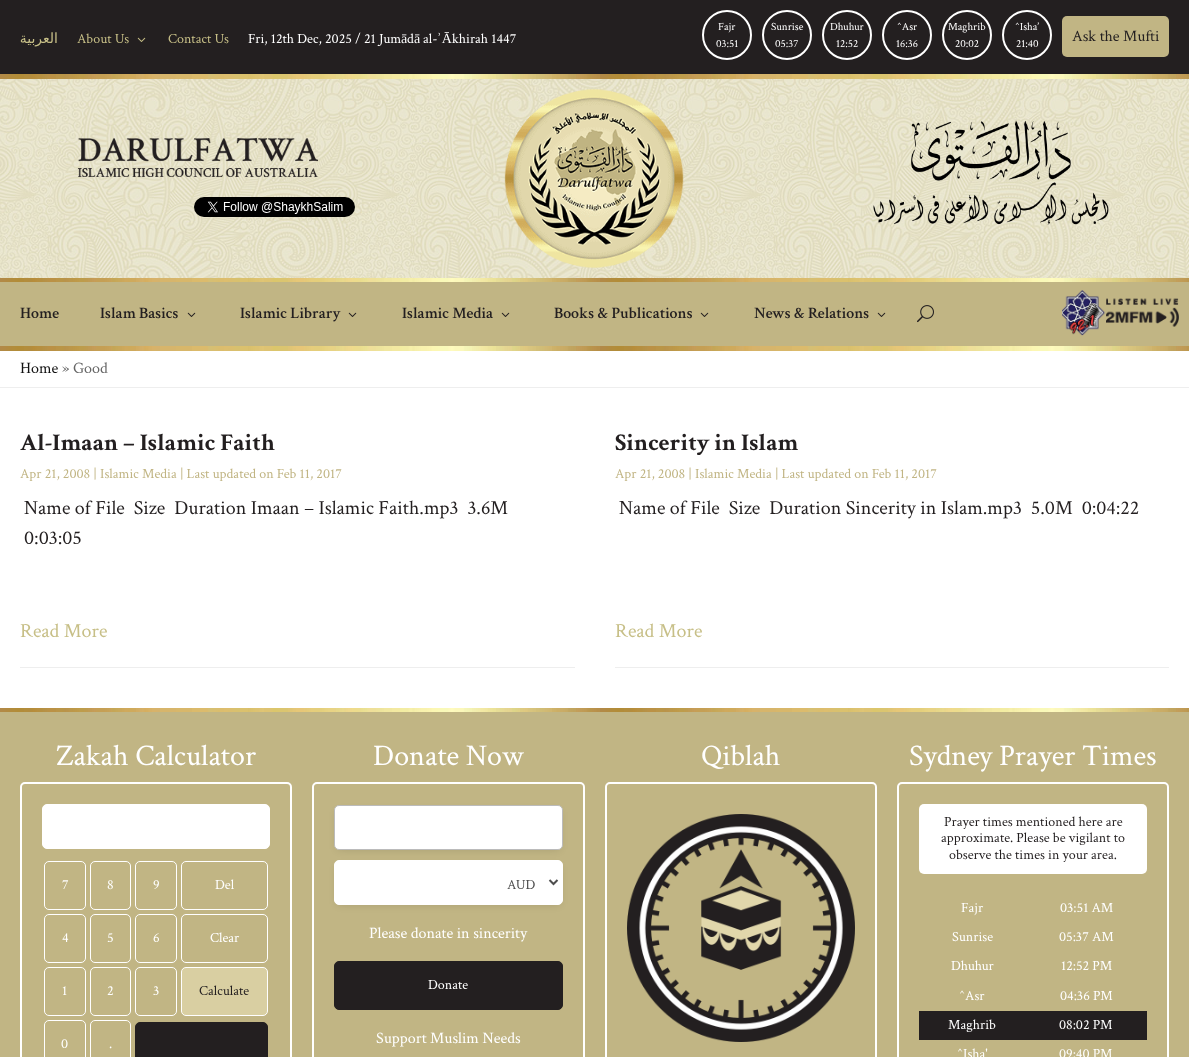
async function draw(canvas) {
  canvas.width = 1189
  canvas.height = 1057
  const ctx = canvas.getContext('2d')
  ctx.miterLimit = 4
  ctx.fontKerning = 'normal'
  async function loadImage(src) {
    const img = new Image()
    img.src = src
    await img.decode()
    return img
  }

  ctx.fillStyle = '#fff'
  ctx.fillRect(0, 0, 1189, 1057)
  ctx.fillStyle = '#231f20'
  ctx.fillRect(0, 0, 1189, 74)
  ctx.direction = 'rtl'
  ctx.font = '14px DejaVu Sans'
  ctx.fillStyle = '#c7bf87'
  ctx.fillText('العربية', 58, 43)
  ctx.direction = 'ltr'
  ctx.font = '14px Crimson Text'
  ctx.fillText('About Us', 77, 43)
  ctx.drawImage(await loadImage('image0.png'), 137, 37, 9, 5)
  ctx.fillText('Contact Us', 168, 43)
  ctx.fillStyle = '#fff'
  ctx.fillText('Fri, 12th Dec,', 248, 43)
  ctx.fillText('2025 / 21 Jum', 325, 43)
  ctx.font = '14px Liberation Serif'
  ctx.fillText('ā', 401, 43)
  ctx.font = '14px Crimson Text'
  ctx.fillText('d', 407, 43)
  ctx.font = '14px Liberation Serif'
  ctx.fillText('ā', 414, 43)
  ctx.font = '14px Crimson Text'
  ctx.fillText('al-', 423, 43)
  ctx.font = '14px Liberation Serif'
  ctx.fillText('ʾĀ', 437, 43)
  ctx.font = '14px Crimson Text'
  ctx.fillText('khirah 1447', 452, 43)
  ctx.beginPath()
  ctx.arc(727, 35, 24, 0, 2 * Math.PI)
  ctx.strokeStyle = '#fff'
  ctx.lineWidth = 2
  ctx.stroke()
  ctx.font = '11px Crimson Text'
  ctx.fillText('Fajr', 718, 30)
  ctx.fillText('03:51', 716, 47)
  ctx.beginPath()
  ctx.arc(787, 35, 24, 0, 2 * Math.PI)
  ctx.stroke()
  ctx.fillText('Sunrise', 771, 30)
  ctx.fillText('05:37', 775, 47)
  ctx.beginPath()
  ctx.arc(847, 35, 24, 0, 2 * Math.PI)
  ctx.stroke()
  ctx.fillText('Dhuhur', 830, 30)
  ctx.fillText('12:52', 836, 47)
  ctx.beginPath()
  ctx.arc(907, 35, 24, 0, 2 * Math.PI)
  ctx.stroke()
  ctx.fillText('^Asr', 897, 30)
  ctx.fillText('16:36', 896, 47)
  ctx.beginPath()
  ctx.arc(967, 35, 24, 0, 2 * Math.PI)
  ctx.stroke()
  ctx.fillText('Maghrib', 948, 30)
  ctx.fillText('20:02', 955, 47)
  ctx.beginPath()
  ctx.arc(1027, 35, 24, 0, 2 * Math.PI)
  ctx.stroke()
  ctx.fillText('^Isha’', 1015, 30)
  ctx.fillText('21:40', 1016, 47)
  ctx.fillStyle = '#c1b584'
  ctx.beginPath()
  ctx.roundRect(1062, 16, 107, 41, 5)
  ctx.fill()
  ctx.font = '16px Crimson Text'
  ctx.fillStyle = '#231f20'
  ctx.fillText('Ask the Mufti', 1072, 41)
  ctx.drawImage(await loadImage('image1.png'), 0, 74, 1189, 5)
  ctx.drawImage(await loadImage('image2.png'), 0, 79, 1189, 199)
  ctx.drawImage(await loadImage('image3.png'), 78, 138, 240, 39)
  ctx.drawImage(await loadImage('image4.png'), 194, 197, 161, 20)
  ctx.drawImage(await loadImage('image5.png'), 504, 89, 180, 179)
  ctx.drawImage(await loadImage('image6.png'), 873, 120, 236, 105)
  ctx.drawImage(await loadImage('image7.png'), 0, 278, 1189, 4)
  ctx.fillStyle = '#c1b584'
  ctx.fillRect(0, 282, 1189, 64)
  ctx.font = '600 16px Crimson Text'
  ctx.fillStyle = '#231f20'
  ctx.fillText('Home', 20, 318)
  ctx.fillText('Islam Basics', 100, 318)
  ctx.drawImage(await loadImage('image8.png'), 187, 312, 9, 5)
  ctx.fillText('Islamic Library', 240, 318)
  ctx.drawImage(await loadImage('image8.png'), 348, 312, 9, 5)
  ctx.fillText('Islamic Media', 402, 318)
  ctx.drawImage(await loadImage('image8.png'), 501, 312, 9, 5)
  ctx.fillText('Books & Publications', 554, 318)
  ctx.drawImage(await loadImage('image8.png'), 700, 312, 9, 5)
  ctx.fillText('News & Relations', 754, 318)
  ctx.drawImage(await loadImage('image8.png'), 877, 312, 9, 5)
  ctx.drawImage(await loadImage('image9.png'), 917, 305, 17, 18)
  ctx.drawImage(await loadImage('image10.png'), 1062, 290, 117, 46)
  ctx.drawImage(await loadImage('image1.png'), 0, 346, 1189, 5)
  ctx.fillStyle = '#eee'
  ctx.fillRect(0, 387, 1189, 1)
  ctx.font = '16px Crimson Text'
  ctx.fillStyle = '#111'
  ctx.fillText('Home', 20, 373)
  ctx.fillStyle = '#666'
  ctx.fillText('» Good', 62, 373)
  ctx.font = 'bold 24px Crimson Text'
  ctx.fillStyle = '#231f20'
  ctx.fillText('Al-Imaan – Islamic Faith', 20, 450)
  ctx.font = '14px Crimson Text'
  ctx.fillStyle = '#c1b584'
  ctx.fillText('Apr 21, 2008 | Islamic Media | Last updated on Feb 11, 2017', 20, 478)
  ctx.font = '20px Crimson Text'
  ctx.fillStyle = '#231f20'
  ctx.fillText('Name of File  Size  Duration Imaan – Islamic Faith.mp3  3.6M', 24, 514)
  ctx.fillText('0:03:05', 24, 544)
  ctx.fillStyle = '#c7bf87'
  ctx.fillText('Read More', 20, 637)
  ctx.fillStyle = '#eee'
  ctx.fillRect(20, 667, 555, 1)
  ctx.font = 'bold 24px Crimson Text'
  ctx.fillStyle = '#231f20'
  ctx.fillText('Sincerity in Islam', 615, 450)
  ctx.font = '14px Crimson Text'
  ctx.fillStyle = '#c1b584'
  ctx.fillText('Apr 21, 2008 | Islamic Media | Last updated on Feb 11, 2017', 615, 478)
  ctx.font = '20px Crimson Text'
  ctx.fillStyle = '#231f20'
  ctx.fillText('Name of File  Size  Duration Sincerity in Islam.mp3  5.0M  0:04:22', 619, 514)
  ctx.fillStyle = '#c7bf87'
  ctx.fillText('Read More', 615, 637)
  ctx.fillStyle = '#eee'
  ctx.fillRect(615, 667, 554, 1)
  ctx.drawImage(await loadImage('image7.png'), 0, 708, 1189, 4)
  ctx.fillStyle = '#c1b584'
  ctx.fillRect(0, 712, 1189, 345)
  ctx.font = '30px Crimson Text'
  ctx.fillStyle = '#fff'
  ctx.fillText('Zakah Calculator', 56, 765)
  ctx.beginPath()
  ctx.roundRect(21, 783, 270, 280, 4)
  ctx.stroke()
  ctx.beginPath()
  ctx.roundRect(42.5, 804.5, 227, 44, 4.5)
  ctx.fill()
  ctx.lineWidth = 1
  ctx.stroke()
  ctx.beginPath()
  ctx.roundRect(44.5, 861.5, 41, 48, 4.5)
  ctx.stroke()
  ctx.font = '14px Crimson Text'
  ctx.fillText('7', 62, 889)
  ctx.beginPath()
  ctx.roundRect(90.5, 861.5, 40, 48, 4.5)
  ctx.stroke()
  ctx.fillText('8', 107, 889)
  ctx.beginPath()
  ctx.roundRect(135.5, 861.5, 41, 48, 4.5)
  ctx.stroke()
  ctx.fillText('9', 153, 889)
  ctx.beginPath()
  ctx.roundRect(181.5, 861.5, 86, 48, 4.5)
  ctx.stroke()
  ctx.fillText('Del', 215, 889)
  ctx.beginPath()
  ctx.roundRect(44.5, 914.5, 41, 48, 4.5)
  ctx.stroke()
  ctx.fillText('4', 62, 942)
  ctx.beginPath()
  ctx.roundRect(90.5, 914.5, 40, 48, 4.5)
  ctx.stroke()
  ctx.fillText('5', 107, 942)
  ctx.beginPath()
  ctx.roundRect(135.5, 914.5, 41, 48, 4.5)
  ctx.stroke()
  ctx.fillText('6', 153, 942)
  ctx.beginPath()
  ctx.roundRect(181.5, 914.5, 86, 48, 4.5)
  ctx.stroke()
  ctx.fillText('Clear', 210, 942)
  ctx.beginPath()
  ctx.roundRect(44.5, 967.5, 41, 48, 4.5)
  ctx.stroke()
  ctx.fillText('1', 62, 995)
  ctx.beginPath()
  ctx.roundRect(90.5, 967.5, 40, 48, 4.5)
  ctx.stroke()
  ctx.fillText('2', 107, 995)
  ctx.beginPath()
  ctx.roundRect(135.5, 967.5, 41, 48, 4.5)
  ctx.stroke()
  ctx.fillText('3', 153, 995)
  ctx.fillStyle = '#d9cfa2'
  ctx.beginPath()
  ctx.roundRect(181.5, 967.5, 86, 48, 4.5)
  ctx.fill()
  ctx.stroke()
  ctx.fillStyle = '#231f20'
  ctx.fillText('Calculate', 199, 995)
  ctx.beginPath()
  ctx.roundRect(44.5, 1020.5, 41, 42, 4.5)
  ctx.stroke()
  ctx.fillStyle = '#fff'
  ctx.fillText('0', 61, 1048)
  ctx.beginPath()
  ctx.roundRect(90.5, 1020.5, 40, 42, 4.5)
  ctx.stroke()
  ctx.fillText('.', 109, 1048)
  ctx.fillStyle = '#231f20'
  ctx.beginPath()
  ctx.roundRect(135.5, 1022.5, 132, 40, 4.5)
  ctx.fill()
  ctx.strokeStyle = '#231f20'
  ctx.stroke()
  ctx.font = '30px Crimson Text'
  ctx.fillStyle = '#fff'
  ctx.fillText('Donate Now', 373, 765)
  ctx.beginPath()
  ctx.roundRect(313, 783, 271, 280, 4)
  ctx.strokeStyle = '#fff'
  ctx.lineWidth = 2
  ctx.stroke()
  ctx.fillStyle = '#00000026'
  ctx.filter = 'blur(4px)'
  ctx.beginPath()
  ctx.roundRect(338, 812, 221, 37, 1)
  ctx.fill()
  ctx.filter = 'none'
  ctx.fillStyle = '#fff'
  ctx.beginPath()
  ctx.roundRect(334.5, 805.5, 228, 44, 4.5)
  ctx.fill()
  ctx.strokeStyle = '#bbb'
  ctx.lineWidth = 1
  ctx.stroke()
  ctx.fillStyle = '#00000026'
  ctx.filter = 'blur(4px)'
  ctx.beginPath()
  ctx.roundRect(338, 867, 221, 37, 1)
  ctx.fill()
  ctx.filter = 'none'
  ctx.fillStyle = '#fff'
  ctx.beginPath()
  ctx.roundRect(334.5, 860.5, 228, 44, 4.5)
  ctx.fill()
  ctx.strokeStyle = '#fff'
  ctx.stroke()
  ctx.beginPath()
  ctx.moveTo(549.5, 880)
  ctx.lineTo(553.5, 884)
  ctx.lineTo(557.5, 880)
  ctx.strokeStyle = '#4e4e4e'
  ctx.lineWidth = 2
  ctx.stroke()
  ctx.font = '14px Crimson Text'
  ctx.fillStyle = '#4e4e4e'
  ctx.fillText('AUD', 507, 889)
  ctx.font = '16px Crimson Text'
  ctx.fillStyle = '#fff'
  ctx.fillText('Please donate in sincerity', 369, 938)
  ctx.fillStyle = '#231f20'
  ctx.beginPath()
  ctx.roundRect(334.5, 961.5, 228, 48, 4.5)
  ctx.fill()
  ctx.strokeStyle = '#231f20'
  ctx.lineWidth = 1
  ctx.stroke()
  ctx.font = '14px Crimson Text'
  ctx.fillStyle = '#fff'
  ctx.fillText('Donate', 428, 989)
  ctx.font = '16px Crimson Text'
  ctx.fillText('Support Muslim Needs', 376, 1043)
  ctx.font = '30px Crimson Text'
  ctx.fillText('Qiblah', 701, 765)
  ctx.beginPath()
  ctx.roundRect(606, 783, 270, 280, 4)
  ctx.strokeStyle = '#fff'
  ctx.lineWidth = 2
  ctx.stroke()
  ctx.drawImage(await loadImage('image11.png'), 627, 814, 228, 228)
  ctx.fillText('Sydney Prayer Times', 909, 765)
  ctx.beginPath()
  ctx.roundRect(898, 783, 270, 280, 4)
  ctx.stroke()
  ctx.beginPath()
  ctx.roundRect(919, 804, 228, 70, 5)
  ctx.fill()
  ctx.font = '14px Crimson Text'
  ctx.fillStyle = '#231f20'
  ctx.fillText('Prayer times mentioned here are', 944, 826)
  ctx.fillText('approximate. Please be vigilant to', 941, 842)
  ctx.fillText('observe the times in your area.', 949, 859)
  ctx.fillStyle = '#fff'
  ctx.fillText('Fajr', 961, 912)
  ctx.fillText('03:51 AM', 1060, 912)
  ctx.fillText('Sunrise', 952, 941)
  ctx.fillText('05:37 AM', 1059, 941)
  ctx.fillText('Dhuhur', 951, 970)
  ctx.fillText('12:52 PM', 1061, 970)
  ctx.fillText('^Asr', 959, 1000)
  ctx.fillText('04:36 PM', 1060, 1000)
  ctx.fillStyle = '#231f20'
  ctx.fillRect(919, 1011, 228, 29)
  ctx.fillStyle = '#fff'
  ctx.fillText('Maghrib', 948, 1029)
  ctx.fillText('08:02 PM', 1059, 1029)
  ctx.fillText('^Isha\'', 957, 1058)
  ctx.fillText('09:40 PM', 1059, 1058)
}

draw(document.querySelector('canvas'))
